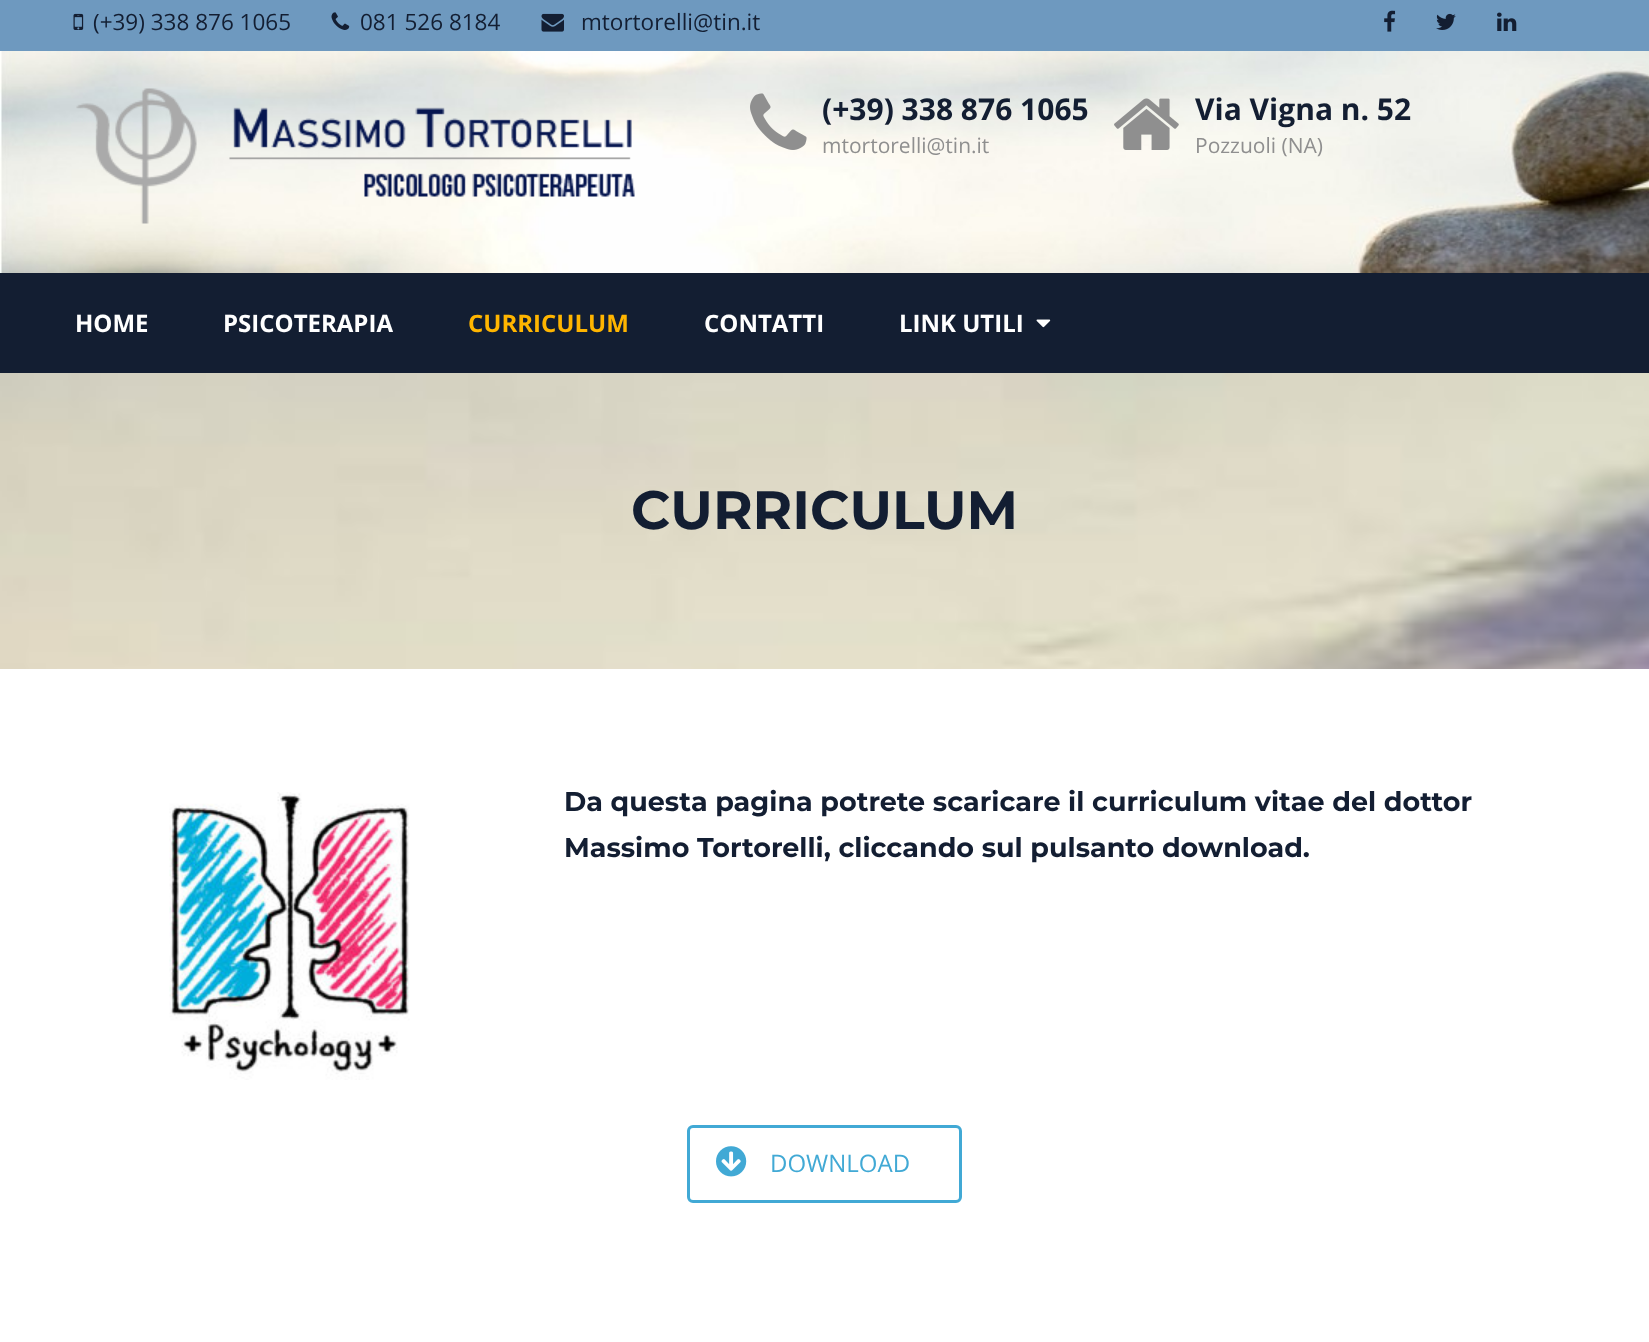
async function draw(canvas) {
  canvas.width = 1649
  canvas.height = 1342
  const ctx = canvas.getContext('2d')
  ctx.miterLimit = 4
  ctx.fontKerning = 'normal'
  async function loadImage(src) {
    const img = new Image()
    img.src = src
    await img.decode()
    return img
  }

  ctx.fillStyle = '#fff'
  ctx.fillRect(0, 0, 1649, 1342)
  ctx.fillStyle = '#6e99bf'
  ctx.fillRect(0, 0, 1649, 51)
  ctx.drawImage(await loadImage('image0.png'), 73, 13, 11, 17)
  ctx.font = '22.5px Open Sans'
  ctx.fillStyle = '#131e32'
  ctx.fillText('(+39) 338 876 1065', 93, 30)
  ctx.drawImage(await loadImage('image1.png'), 331, 12, 19, 18)
  ctx.fillText('081 526 8184', 360, 30)
  ctx.drawImage(await loadImage('image2.png'), 541, 13, 23, 19)
  ctx.fillText('mtortorelli@tin.it', 581, 30)
  ctx.drawImage(await loadImage('image3.png'), 1384, 10, 12, 22)
  ctx.drawImage(await loadImage('image4.png'), 1436, 13, 20, 17)
  ctx.drawImage(await loadImage('image5.png'), 1497, 12, 20, 19)
  ctx.drawImage(await loadImage('image6.png'), 0, 51, 1649, 222)
  ctx.drawImage(await loadImage('image7.png'), 76, 88, 559, 136)
  ctx.drawImage(await loadImage('image8.png'), 750, 93, 57, 57)
  ctx.font = 'bold 30px Open Sans'
  ctx.fillText('(+39) 338 876 1065', 822, 120)
  ctx.font = '21px Open Sans'
  ctx.fillStyle = '#8f8f8f'
  ctx.fillText('mtortorelli@tin.it', 822, 153)
  ctx.drawImage(await loadImage('image9.png'), 1114, 98, 65, 52)
  ctx.font = 'bold 30px Open Sans'
  ctx.fillStyle = '#131e32'
  ctx.fillText('Via Vigna n. 52', 1195, 120)
  ctx.font = '21px Open Sans'
  ctx.fillStyle = '#8f8f8f'
  ctx.fillText('Pozzuoli (NA)', 1195, 153)
  ctx.fillStyle = '#131e32'
  ctx.fillRect(0, 273, 1649, 100)
  ctx.font = 'bold 24px Open Sans'
  ctx.fillStyle = '#fff'
  ctx.fillText('HOME', 75, 332)
  ctx.fillText('PSICOTERAPIA', 223, 332)
  ctx.fillStyle = '#ffb500'
  ctx.fillText('CURRICULUM', 468, 332)
  ctx.fillStyle = '#fff'
  ctx.fillText('CONTATTI', 704, 332)
  ctx.fillText('LINK UTILI', 899, 332)
  ctx.drawImage(await loadImage('image10.png'), 1036, 319, 15, 9)
  ctx.drawImage(await loadImage('image11.png'), 0, 373, 1649, 296)
  ctx.font = '100 54px Montserrat'
  ctx.fillStyle = '#131e32'
  ctx.fillText('CURRICULUM', 631, 529)
  ctx.drawImage(await loadImage('image12.png'), 169, 792, 241, 288)
  ctx.font = '100 27px Montserrat'
  ctx.fillText('Da questa pagina potrete scaricare il curriculum vitae del dottor', 564, 811)
  ctx.fillText('Massimo Tortorelli, cliccando sul pulsanto download.', 564, 857)
  ctx.beginPath()
  ctx.roundRect(688.5, 1126.5, 272, 75, 4.5)
  ctx.strokeStyle = '#41a9d5'
  ctx.lineWidth = 3
  ctx.stroke()
  ctx.drawImage(await loadImage('image13.png'), 716, 1146, 31, 31)
  ctx.font = '24px Open Sans'
  ctx.fillStyle = '#41a9d5'
  ctx.fillText('DOWNLOAD', 770, 1172)
}

draw(document.querySelector('canvas'))
